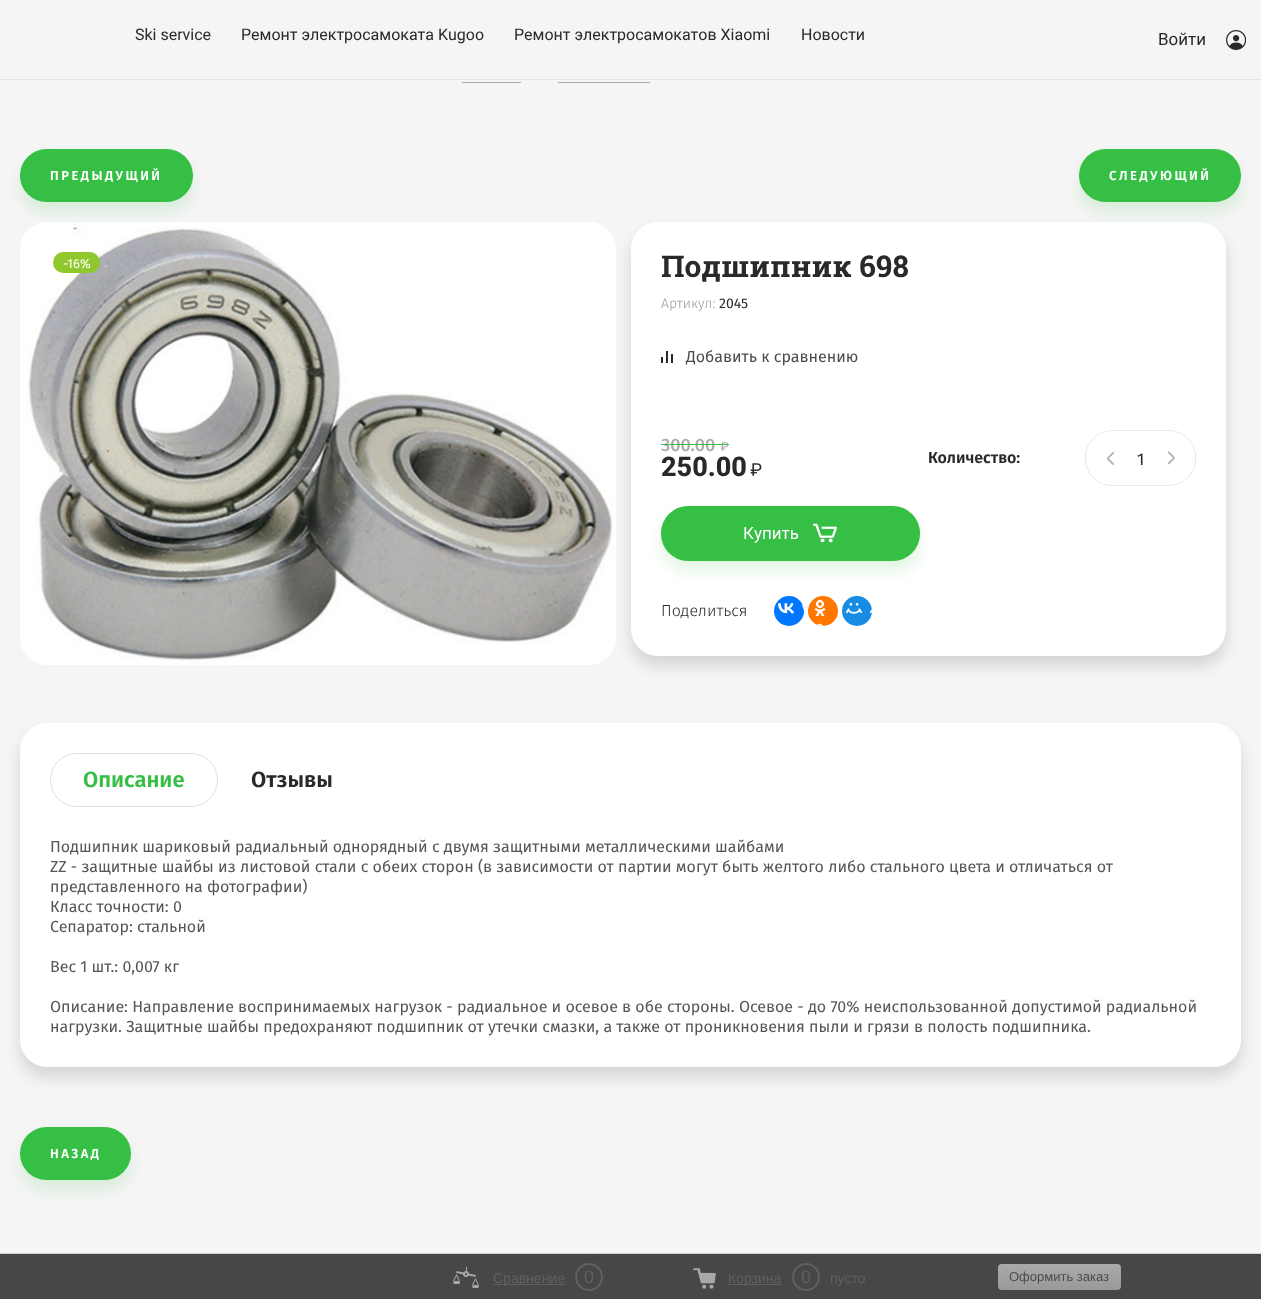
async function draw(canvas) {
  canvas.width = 1261
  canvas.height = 1299
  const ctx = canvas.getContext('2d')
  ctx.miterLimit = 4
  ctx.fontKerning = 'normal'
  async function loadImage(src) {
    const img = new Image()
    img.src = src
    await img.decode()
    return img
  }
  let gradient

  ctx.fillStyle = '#f5f5f5'
  ctx.fillRect(0, 0, 1261, 1299)
  ctx.fillStyle = '#464646'
  ctx.fillRect(0, 1254, 1261, 6)
  ctx.fillStyle = '#e4e4e4'
  ctx.fillRect(0, 79, 1261, 1)
  ctx.font = '16px Roboto'
  ctx.fillStyle = '#292929'
  ctx.fillText('Ski service', 135, 40)
  ctx.fillText('Ремонт электросамоката Kugoo', 241, 40)
  ctx.fillText('Ремонт электросамокатов Xiaomi', 514, 40)
  ctx.fillText('Новости', 801, 40)
  ctx.font = '17px Roboto'
  ctx.fillText('Войти', 1158, 45)
  ctx.drawImage(await loadImage('image0.png'), 1226, 30, 20, 20)
  ctx.fillStyle = '#acacac'
  ctx.fillRect(462, 82, 59, 1)
  ctx.fillRect(558, 82, 92, 1)
  ctx.fillStyle = '#35bf4526'
  ctx.filter = 'blur(7.5px)'
  ctx.beginPath()
  ctx.roundRect(20, 159, 173, 53, 26.5)
  ctx.fill()
  ctx.filter = 'none'
  ctx.fillStyle = '#35bf45'
  ctx.beginPath()
  ctx.roundRect(20, 149, 173, 53, 26.5)
  ctx.fill()
  ctx.letterSpacing = '2.5px'
  ctx.font = '600 13px Fira Sans'
  ctx.fillStyle = '#fff'
  ctx.fillText('ПРЕДЫДУЩИЙ', 50, 180)
  ctx.fillStyle = '#35bf4526'
  ctx.filter = 'blur(7.5px)'
  ctx.beginPath()
  ctx.roundRect(1079, 159, 162, 53, 26.5)
  ctx.fill()
  ctx.filter = 'none'
  ctx.fillStyle = '#35bf45'
  ctx.beginPath()
  ctx.roundRect(1079, 149, 162, 53, 26.5)
  ctx.fill()
  ctx.fillStyle = '#fff'
  ctx.fillText('СЛЕДУЮЩИЙ', 1109, 180)
  ctx.fillStyle = '#00000021'
  ctx.filter = 'blur(7.5px)'
  ctx.beginPath()
  ctx.roundRect(631, 232, 595, 434, 27)
  ctx.fill()
  ctx.filter = 'none'
  ctx.drawImage(await loadImage('image1.png'), 20, 222, 596, 443)
  ctx.fillStyle = '#8fc72d'
  ctx.beginPath()
  ctx.roundRect(53, 252, 47, 21, 10.5)
  ctx.fill()
  ctx.letterSpacing = '0px'
  ctx.font = '13px Fira Sans'
  ctx.fillStyle = '#fff'
  ctx.fillText('-16%', 63, 268)
  ctx.beginPath()
  ctx.roundRect(631, 222, 595, 434, 27)
  ctx.fill()
  ctx.font = 'bold 30px Roboto Slab'
  ctx.fillStyle = '#292929'
  ctx.fillText('Подшипник 698', 661, 277)
  ctx.font = '300 14px Fira Sans'
  ctx.fillStyle = '#9b9b9b'
  ctx.fillText('Артикул:', 661, 308)
  ctx.font = '14px Fira Sans'
  ctx.fillStyle = '#292929'
  ctx.fillText('2045', 719, 308)
  ctx.drawImage(await loadImage('image2.png'), 661, 351, 12, 12)
  ctx.font = '16px Fira Sans'
  ctx.fillStyle = '#4c4c4c'
  ctx.fillText('Добавить к сравнению', 686, 362)
  ctx.font = '500 18px Fira Sans'
  ctx.fillStyle = '#adacac'
  ctx.fillText('300.00', 661, 451)
  ctx.drawImage(await loadImage('image3.png'), 720, 442, 9, 9)
  ctx.fillStyle = '#35bf45'
  ctx.fillRect(661, 444, 68, 1)
  ctx.font = '800 27px Roboto'
  ctx.fillStyle = '#292929'
  ctx.fillText('250.00', 661, 476)
  ctx.drawImage(await loadImage('image4.png'), 750, 463, 12, 13)
  ctx.font = '600 16px Fira Sans'
  ctx.fillText('Количество:', 928, 463)
  ctx.beginPath()
  ctx.roundRect(1085.5, 430.5, 110, 55, 26.5)
  ctx.strokeStyle = '#eaeaea'
  ctx.stroke()
  ctx.drawImage(await loadImage('image5.png'), 1107, 452, 7, 13)
  ctx.font = '17px Fira Sans'
  ctx.fillText('1', 1137, 465)
  ctx.drawImage(await loadImage('image6.png'), 1167, 451, 8, 14)
  ctx.fillStyle = '#35bf4526'
  ctx.filter = 'blur(7.5px)'
  ctx.beginPath()
  ctx.roundRect(661, 516, 259, 55, 27)
  ctx.fill()
  ctx.filter = 'none'
  ctx.fillStyle = '#35bf45'
  ctx.beginPath()
  ctx.roundRect(661, 506, 259, 55, 27)
  ctx.fill()
  ctx.font = '17px Roboto'
  ctx.fillStyle = '#fff'
  ctx.fillText('Купить', 743, 539)
  ctx.drawImage(await loadImage('image7.png'), 813, 523, 24, 20)
  ctx.font = '300 16px Fira Sans'
  ctx.fillStyle = '#292929'
  ctx.fillText('Поделиться', 661, 616)
  ctx.fillStyle = '#07f'
  ctx.beginPath()
  ctx.arc(789, 611, 15, 0, 2 * Math.PI)
  ctx.fill()
  ctx.drawImage(await loadImage('image8.png'), 778, 603, 26, 11)
  ctx.fillStyle = '#f70'
  ctx.beginPath()
  ctx.arc(823, 611, 15, 0, 2 * Math.PI)
  ctx.fill()
  ctx.drawImage(await loadImage('image9.png'), 814, 599, 12, 27)
  ctx.fillStyle = '#168de2'
  ctx.beginPath()
  ctx.arc(857, 611, 15, 0, 2 * Math.PI)
  ctx.fill()
  ctx.drawImage(await loadImage('image10.png'), 846, 603, 26, 11)
  ctx.fillStyle = '#00000021'
  ctx.filter = 'blur(7.5px)'
  ctx.beginPath()
  ctx.roundRect(20, 733, 1221, 344, 27)
  ctx.fill()
  ctx.filter = 'none'
  ctx.fillStyle = '#fff'
  ctx.beginPath()
  ctx.roundRect(20, 723, 1221, 344, 27)
  ctx.fill()
  ctx.beginPath()
  ctx.roundRect(50.5, 753.5, 167, 53, 26.5)
  ctx.strokeStyle = '#dfdfdf'
  ctx.stroke()
  ctx.font = '600 22px Fira Sans'
  ctx.fillStyle = '#35bf45'
  ctx.fillText('Описание', 83, 787)
  ctx.fillStyle = '#292929'
  ctx.fillText('Отзывы', 251, 787)
  ctx.font = '16px Fira Sans'
  ctx.fillStyle = '#565656'
  ctx.fillText('Подшипник шариковый радиальный однорядный с двумя защитными металлическими шайбами', 50, 852)
  ctx.fillText('ZZ - защитные шайбы из листовой стали с обеих сторон (в зависимости от партии могут быть желтого либо стального цвета и отличаться от', 50, 872)
  ctx.fillText('представленного на фотографии)', 50, 892)
  ctx.fillText('Класс точности: 0', 50, 912)
  ctx.fillText('Сепаратор: стальной', 50, 932)
  ctx.fillText('Вес 1 шт.: 0,007 кг', 50, 972)
  ctx.fillText('Описание: Направление воспринимаемых нагрузок - радиальное и осевое в обе стороны. Осевое - до 70% неиспользованной допустимой радиальной', 50, 1012)
  ctx.fillText('нагрузки. Защитные шайбы предохраняют подшипник от утечки смазки, а также от проникновения пыли и грязи в полость подшипника.', 50, 1032)
  ctx.fillStyle = '#35bf4526'
  ctx.filter = 'blur(7.5px)'
  ctx.beginPath()
  ctx.roundRect(20, 1137, 111, 53, 26.5)
  ctx.fill()
  ctx.filter = 'none'
  ctx.fillStyle = '#35bf45'
  ctx.beginPath()
  ctx.roundRect(20, 1127, 111, 53, 26.5)
  ctx.fill()
  ctx.letterSpacing = '2.5px'
  ctx.font = '600 13px Fira Sans'
  ctx.fillStyle = '#fff'
  ctx.fillText('НАЗАД', 50, 1158)
  ctx.fillStyle = '#d4d4d4'
  ctx.fillRect(0, 1253, 1261, 1)
  ctx.fillStyle = '#474747'
  ctx.fillRect(0, 1260, 1261, 39)
  ctx.drawImage(await loadImage('image11.png'), 453, 1267, 26, 21)
  ctx.fillStyle = '#606060'
  ctx.fillRect(493, 1284, 72, 1)
  ctx.letterSpacing = '0px'
  ctx.font = '14px Liberation Sans'
  ctx.fillText('Сравнение', 493, 1283)
  ctx.beginPath()
  ctx.arc(589, 1277, 13, 0, 2 * Math.PI)
  ctx.strokeStyle = '#606060'
  ctx.lineWidth = 2
  ctx.stroke()
  ctx.font = '18px Liberation Sans'
  ctx.fillText('0', 584, 1283)
  ctx.drawImage(await loadImage('image12.png'), 693, 1268, 23, 21)
  ctx.fillRect(728, 1284, 54, 1)
  ctx.font = '14px Liberation Sans'
  ctx.fillText('Корзина', 728, 1283)
  ctx.beginPath()
  ctx.arc(806, 1277, 13, 0, 2 * Math.PI)
  ctx.stroke()
  ctx.font = '18px Liberation Sans'
  ctx.fillText('0', 801, 1283)
  ctx.font = '14px Liberation Sans'
  ctx.fillText('пусто', 830, 1283)
  gradient = ctx.createLinearGradient(1060, 1264, 1060, 1290)
  gradient.addColorStop(0, '#aaa')
  gradient.addColorStop(1, '#999')
  ctx.fillStyle = gradient
  ctx.beginPath()
  ctx.roundRect(998, 1264, 123, 26, 4)
  ctx.fill()
  ctx.font = '13px Liberation Sans'
  ctx.fillStyle = '#4c4c4c'
  ctx.fillText('Оформить заказ', 1009, 1281)
}

draw(document.querySelector('canvas'))
